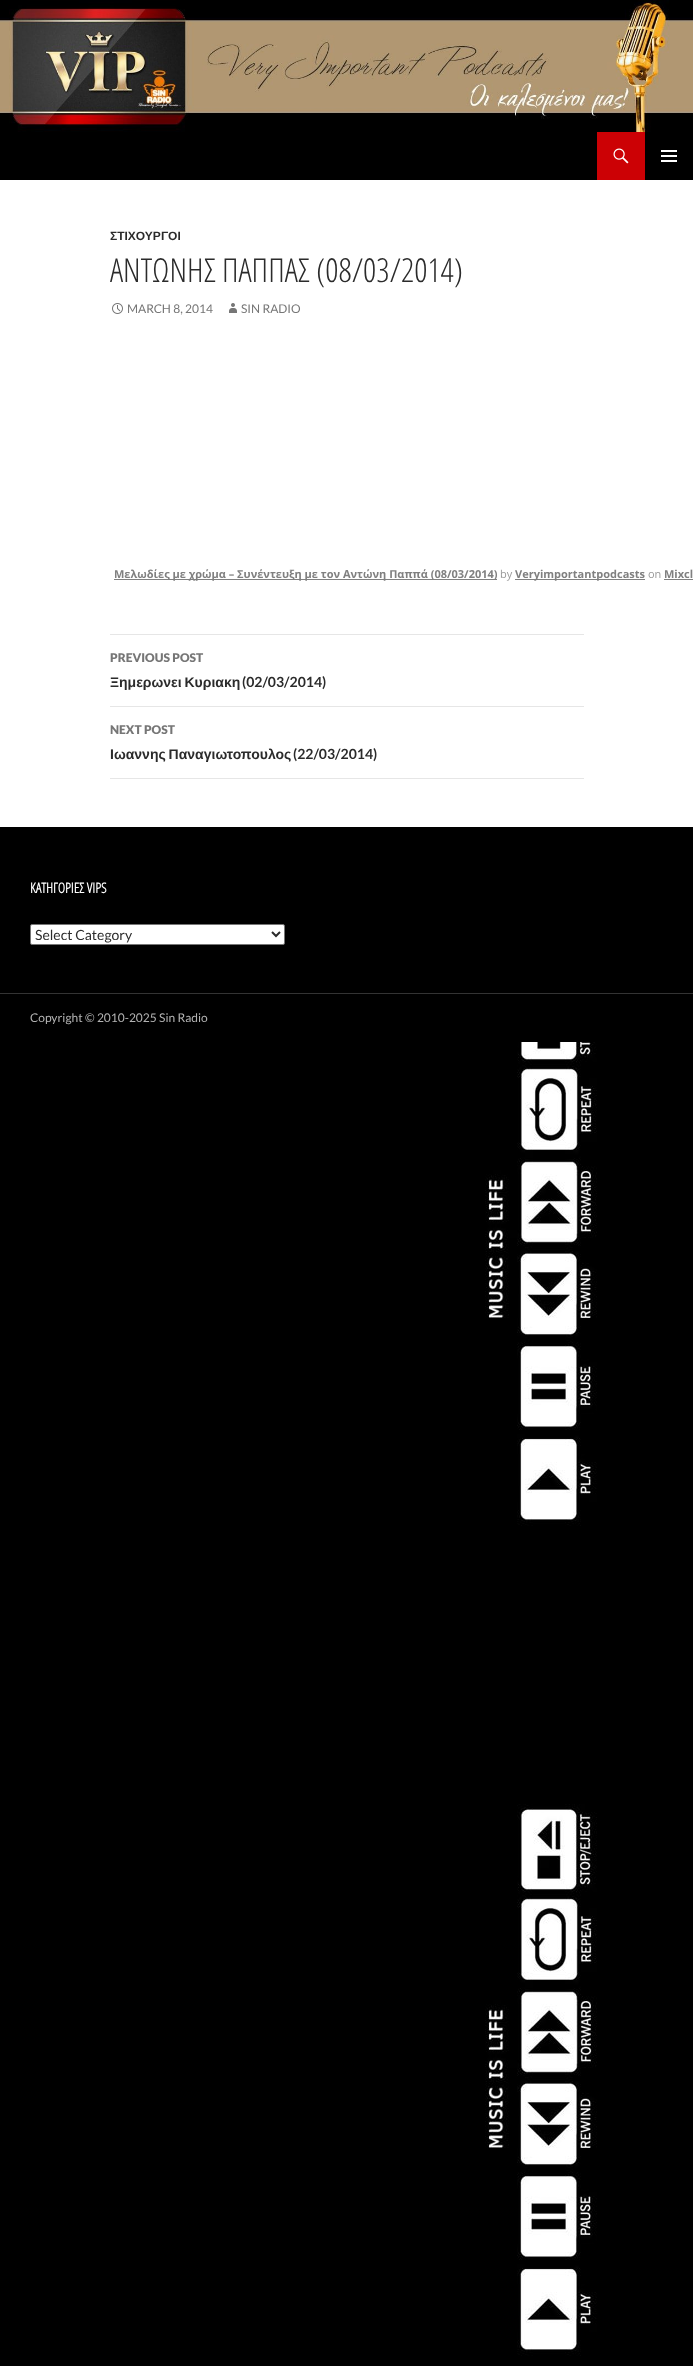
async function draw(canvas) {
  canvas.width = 693
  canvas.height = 2366
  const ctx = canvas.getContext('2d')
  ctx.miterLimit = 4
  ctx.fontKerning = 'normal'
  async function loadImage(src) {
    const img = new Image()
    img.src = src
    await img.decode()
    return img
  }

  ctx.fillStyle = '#fff'
  ctx.fillRect(0, 0, 693, 2366)
  ctx.drawImage(await loadImage('image0.png'), 0, 1042, 693, 1324)
  ctx.drawImage(await loadImage('image1.png'), 0, 0, 693, 132)
  ctx.fillStyle = '#000'
  ctx.fillRect(0, 132, 693, 48)
  ctx.fillStyle = '#cc0105'
  ctx.fillRect(597, 132, 48, 48)
  ctx.drawImage(await loadImage('image2.png'), 613, 148, 16, 16)
  ctx.drawImage(await loadImage('image3.png'), 661, 150, 16, 12)
  ctx.font = 'bold 12px Liberation Sans'
  ctx.fillStyle = '#2b2b2b'
  ctx.fillText('ΣΤΙΧΟΥΡΓΟΙ', 110, 240)
  ctx.font = '300 33px Open Sans Condensed'
  ctx.fillText('ΑΝΤΩΝΗΣ ΠΑΠΠΑΣ (08/03/2014)', 110, 282)
  ctx.drawImage(await loadImage('image4.png'), 112, 303, 11, 11)
  ctx.font = '12px Lato'
  ctx.fillStyle = '#767676'
  ctx.fillText('MARCH 8, 2014', 127, 313)
  ctx.drawImage(await loadImage('image5.png'), 229, 303, 8, 10)
  ctx.fillText('SIN RADIO', 241, 313)
  ctx.fillStyle = '#808080'
  ctx.fillRect(114, 579, 383, 1)
  ctx.font = 'bold 11px Open Sans'
  ctx.fillText('Μελωδίες με χρώμα – Συνέντευξη με τον Αντώνη Παππά (08/03/2014)', 114, 578)
  ctx.font = '11px Open Sans'
  ctx.fillStyle = '#999'
  ctx.fillText('by', 500, 578)
  ctx.fillStyle = '#808080'
  ctx.fillRect(515, 579, 130, 1)
  ctx.font = 'bold 11px Open Sans'
  ctx.fillText('Veryimportantpodcasts', 515, 578)
  ctx.font = '11px Open Sans'
  ctx.fillStyle = '#999'
  ctx.fillText('on', 648, 578)
  ctx.font = 'bold 11px Open Sans'
  ctx.fillStyle = '#808080'
  ctx.fillText('Mixcl', 664, 578)
  ctx.fillRect(664, 579, 29, 1)
  ctx.fillStyle = '#e6e6e6'
  ctx.fillRect(110, 634, 474, 1)
  ctx.fillRect(110, 706, 474, 1)
  ctx.font = '900 12px Lato'
  ctx.fillStyle = '#767676'
  ctx.fillText('PREVIOUS POST', 110, 662)
  ctx.wordSpacing = '-1px'
  ctx.font = 'bold 14px Liberation Sans'
  ctx.fillStyle = '#2b2b2b'
  ctx.fillText('Ξημερωνει Κυριακη', 110, 687)
  ctx.wordSpacing = '0px'
  ctx.font = 'bold 14px Lato'
  ctx.fillText('(02/03/2014)', 242, 687)
  ctx.fillStyle = '#e6e6e6'
  ctx.fillRect(110, 778, 474, 1)
  ctx.font = '900 12px Lato'
  ctx.fillStyle = '#767676'
  ctx.fillText('NEXT POST', 110, 734)
  ctx.wordSpacing = '-1px'
  ctx.font = 'bold 14px Liberation Sans'
  ctx.fillStyle = '#2b2b2b'
  ctx.fillText('Ιωαννης Παναγιωτοπουλος', 110, 759)
  ctx.wordSpacing = '0px'
  ctx.font = 'bold 14px Lato'
  ctx.fillText('(22/03/2014)', 293, 759)
  ctx.fillStyle = '#000'
  ctx.fillRect(0, 827, 693, 166)
  ctx.fillStyle = '#333'
  ctx.fillRect(0, 993, 693, 1)
  ctx.font = 'bold 14px Open Sans Condensed'
  ctx.fillStyle = '#fff'
  ctx.fillText('ΚΑΤΗΓΟΡΙΕΣ VIPS', 30, 893)
  ctx.beginPath()
  ctx.roundRect(30.5, 924.5, 254, 20, 1.5)
  ctx.fill()
  ctx.strokeStyle = '#767676'
  ctx.stroke()
  ctx.beginPath()
  ctx.moveTo(272, 932)
  ctx.lineTo(276, 936)
  ctx.lineTo(280, 932)
  ctx.strokeStyle = '#2b2b2b'
  ctx.lineWidth = 2
  ctx.stroke()
  ctx.font = '14px Lato'
  ctx.fillStyle = '#2b2b2b'
  ctx.fillText('Select Category', 35, 940)
  ctx.fillStyle = '#000'
  ctx.fillRect(0, 994, 693, 48)
  ctx.font = '12px Lato'
  ctx.fillStyle = '#b3b3b3'
  ctx.fillText('Copyright © 2010-2025 Sin Radio', 30, 1022)
}

draw(document.querySelector('canvas'))
